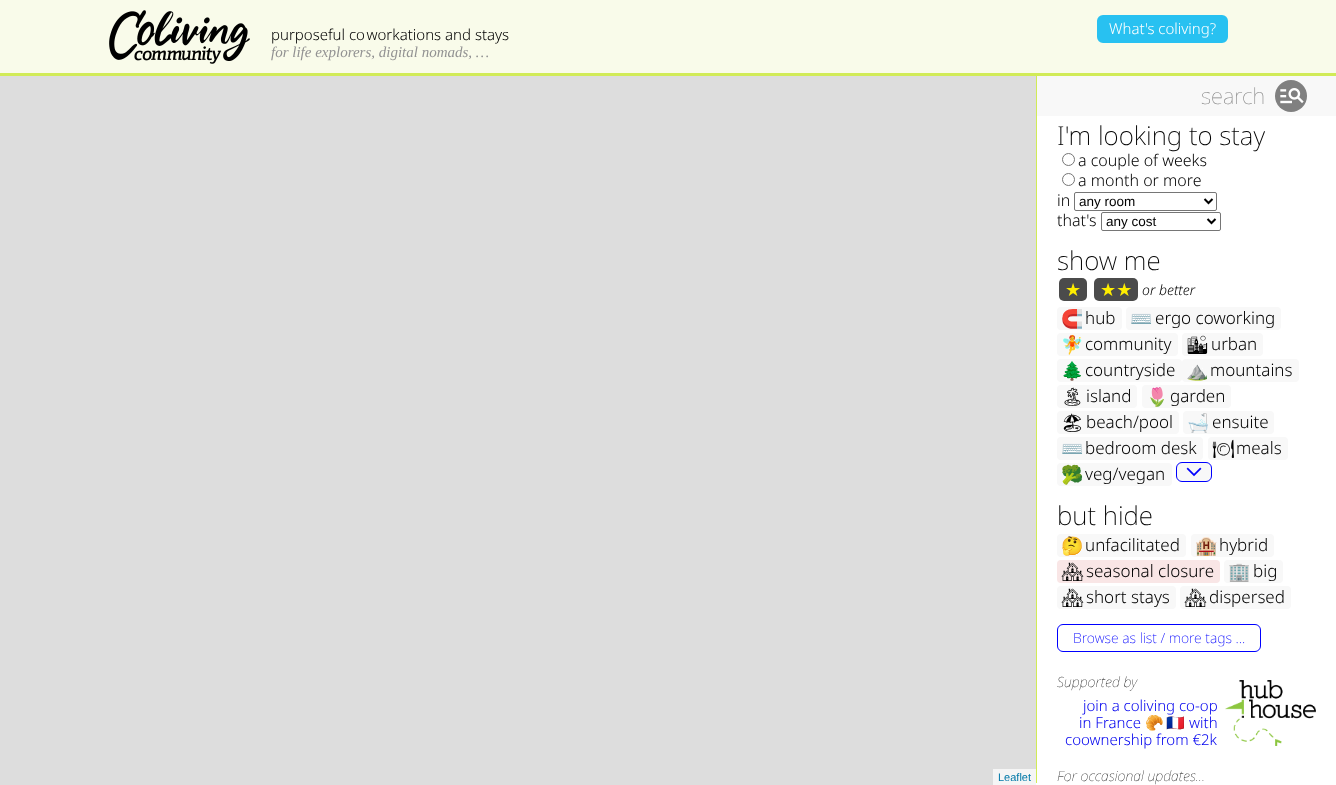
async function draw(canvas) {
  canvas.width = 1336
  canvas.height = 785
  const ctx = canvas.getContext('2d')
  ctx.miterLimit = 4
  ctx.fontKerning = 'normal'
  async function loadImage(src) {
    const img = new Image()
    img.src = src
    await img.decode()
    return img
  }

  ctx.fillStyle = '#fff'
  ctx.fillRect(0, 0, 1336, 785)
  ctx.fillStyle = '#f9fbea'
  ctx.fillRect(0, 0, 1336, 73)
  ctx.fillStyle = '#d1eb57'
  ctx.fillRect(0, 73, 1336, 3)
  ctx.drawImage(await loadImage('image0.png'), 109, 10, 141, 54)
  ctx.font = '300 15px Noto Sans'
  ctx.fillStyle = '#000'
  ctx.fillText('purposeful co workations and stays', 271, 40)
  ctx.font = 'italic 15px Liberation Serif'
  ctx.fillStyle = '#929292'
  ctx.fillText('for life explorers, digital nomads, …', 271, 57)
  ctx.fillStyle = '#28c1f1'
  ctx.beginPath()
  ctx.roundRect(1098, 16, 129, 26, 5)
  ctx.fill()
  ctx.strokeStyle = '#28c1f1'
  ctx.lineWidth = 2
  ctx.stroke()
  ctx.font = '300 15px Noto Sans'
  ctx.fillStyle = '#fff'
  ctx.fillText('What\'s coliving?', 1109, 34)
  ctx.fillStyle = '#ddd'
  ctx.fillRect(0, 76, 1036, 709)
  ctx.fillStyle = '#f5f5f5'
  ctx.fillRect(993, 769, 43, 16)
  ctx.font = '11px Liberation Sans'
  ctx.fillStyle = '#0078a8'
  ctx.fillText('Leaflet', 998, 781)
  ctx.fillStyle = '#d1eb57'
  ctx.fillRect(1036, 76, 1, 707)
  ctx.fillStyle = '#f8f8f8'
  ctx.fillRect(1037, 76, 299, 40)
  ctx.font = '100 22px Noto Sans'
  ctx.fillStyle = '#808080'
  ctx.fillText('search', 1201, 104)
  ctx.beginPath()
  ctx.arc(1291, 96, 16, 0, 2 * Math.PI)
  ctx.fill()
  ctx.drawImage(await loadImage('image1.png'), 1280, 88, 24, 16)
  ctx.font = '200 26px Noto Sans'
  ctx.fillStyle = '#000'
  ctx.fillText('I\'m looking to stay', 1057, 145)
  ctx.beginPath()
  ctx.arc(1068.5, 159.5, 6, 0, 2 * Math.PI)
  ctx.strokeStyle = '#767676'
  ctx.lineWidth = 1
  ctx.stroke()
  ctx.font = '300 16px Noto Sans'
  ctx.fillText('a couple of weeks', 1078, 166)
  ctx.beginPath()
  ctx.arc(1068.5, 179.5, 6, 0, 2 * Math.PI)
  ctx.stroke()
  ctx.fillText('a month or more', 1078, 186)
  ctx.fillText('in', 1057, 206)
  ctx.beginPath()
  ctx.roundRect(1074.5, 192.5, 142, 18, 1.5)
  ctx.stroke()
  ctx.beginPath()
  ctx.moveTo(1204.5, 199)
  ctx.lineTo(1208.5, 203)
  ctx.lineTo(1212.5, 199)
  ctx.strokeStyle = '#000'
  ctx.lineWidth = 2
  ctx.stroke()
  ctx.font = '13.5px Liberation Sans'
  ctx.fillText('any room', 1079, 206)
  ctx.font = '300 16px Noto Sans'
  ctx.fillText('that\'s', 1057, 226)
  ctx.beginPath()
  ctx.roundRect(1101.5, 212.5, 119, 18, 1.5)
  ctx.strokeStyle = '#767676'
  ctx.lineWidth = 1
  ctx.stroke()
  ctx.beginPath()
  ctx.moveTo(1207.5, 219)
  ctx.lineTo(1211.5, 223)
  ctx.lineTo(1215.5, 219)
  ctx.strokeStyle = '#000'
  ctx.lineWidth = 2
  ctx.stroke()
  ctx.font = '13.5px Liberation Sans'
  ctx.fillText('any cost', 1106, 226)
  ctx.font = '200 26px Noto Sans'
  ctx.fillText('show me', 1057, 270)
  ctx.fillStyle = '#4b4b4b'
  ctx.beginPath()
  ctx.roundRect(1059, 278, 28, 23, 5)
  ctx.fill()
  ctx.font = '18px DejaVu Sans'
  ctx.fillStyle = '#fe0'
  ctx.fillText('★', 1065, 296)
  ctx.fillStyle = '#4b4b4b'
  ctx.beginPath()
  ctx.roundRect(1094, 278, 44, 23, 5)
  ctx.fill()
  ctx.fillStyle = '#fe0'
  ctx.fillText('★★', 1100, 296)
  ctx.font = 'italic 300 14px Noto Sans'
  ctx.fillStyle = '#000'
  ctx.fillText('or better', 1142, 295)
  ctx.fillStyle = '#f8f8f8'
  ctx.beginPath()
  ctx.roundRect(1057, 307, 65, 23, 4)
  ctx.fill()
  ctx.font = '18px Noto Color Emoji'
  ctx.fillStyle = '#000'
  ctx.fillText('🧲', 1061, 325)
  ctx.font = '300 17px Noto Sans'
  ctx.fillText('hub', 1085, 324)
  ctx.fillStyle = '#f8f8f8'
  ctx.beginPath()
  ctx.roundRect(1126, 307, 155, 23, 4)
  ctx.fill()
  ctx.font = '18px Noto Color Emoji'
  ctx.fillStyle = '#000'
  ctx.fillText('⌨️', 1130, 325)
  ctx.font = '300 17px Noto Sans'
  ctx.fillText('ergo coworking', 1155, 324)
  ctx.fillStyle = '#f8f8f8'
  ctx.beginPath()
  ctx.roundRect(1057, 333, 121, 23, 4)
  ctx.fill()
  ctx.font = '18px Noto Color Emoji'
  ctx.fillStyle = '#000'
  ctx.fillText('🧚', 1061, 351)
  ctx.font = '300 17px Noto Sans'
  ctx.fillText('community', 1085, 350)
  ctx.fillStyle = '#f8f8f8'
  ctx.beginPath()
  ctx.roundRect(1182, 333, 81, 23, 4)
  ctx.fill()
  ctx.font = '500 18px Noto Emoji'
  ctx.fillStyle = '#000'
  ctx.fillText('🏙', 1186, 351)
  ctx.font = '300 17px Noto Sans'
  ctx.fillText('urban', 1211, 350)
  ctx.fillStyle = '#f8f8f8'
  ctx.beginPath()
  ctx.roundRect(1057, 359, 125, 23, 4)
  ctx.fill()
  ctx.font = '18px Noto Color Emoji'
  ctx.fillStyle = '#000'
  ctx.fillText('🌲', 1061, 377)
  ctx.font = '300 17px Noto Sans'
  ctx.fillText('countryside', 1085, 376)
  ctx.fillStyle = '#f8f8f8'
  ctx.beginPath()
  ctx.roundRect(1182, 359, 117, 23, 4)
  ctx.fill()
  ctx.font = '18px Noto Color Emoji'
  ctx.fillStyle = '#000'
  ctx.fillText('⛰️', 1186, 377)
  ctx.font = '300 17px Noto Sans'
  ctx.fillText('mountains', 1210, 376)
  ctx.fillStyle = '#f8f8f8'
  ctx.beginPath()
  ctx.roundRect(1057, 385, 80, 23, 4)
  ctx.fill()
  ctx.font = '500 18px Noto Emoji'
  ctx.fillStyle = '#000'
  ctx.fillText('🏝', 1061, 403)
  ctx.font = '300 17px Noto Sans'
  ctx.fillText('island', 1086, 402)
  ctx.fillStyle = '#f8f8f8'
  ctx.beginPath()
  ctx.roundRect(1142, 385, 89, 23, 4)
  ctx.fill()
  ctx.font = '18px Noto Color Emoji'
  ctx.fillStyle = '#000'
  ctx.fillText('🌷', 1146, 403)
  ctx.font = '300 17px Noto Sans'
  ctx.fillText('garden', 1170, 402)
  ctx.fillStyle = '#f8f8f8'
  ctx.beginPath()
  ctx.roundRect(1057, 411, 122, 23, 4)
  ctx.fill()
  ctx.font = '500 18px Noto Emoji'
  ctx.fillStyle = '#000'
  ctx.fillText('🏖', 1061, 429)
  ctx.font = '300 17px Noto Sans'
  ctx.fillText('beach/pool', 1086, 428)
  ctx.fillStyle = '#f8f8f8'
  ctx.beginPath()
  ctx.roundRect(1183, 411, 91, 23, 4)
  ctx.fill()
  ctx.font = '18px Noto Color Emoji'
  ctx.fillStyle = '#000'
  ctx.fillText('🛁', 1187, 429)
  ctx.font = '300 17px Noto Sans'
  ctx.fillText('ensuite', 1212, 428)
  ctx.fillStyle = '#f8f8f8'
  ctx.beginPath()
  ctx.roundRect(1057, 437, 146, 23, 4)
  ctx.fill()
  ctx.font = '18px Noto Color Emoji'
  ctx.fillStyle = '#000'
  ctx.fillText('⌨️', 1061, 455)
  ctx.font = '300 17px Noto Sans'
  ctx.fillText('bedroom desk', 1085, 454)
  ctx.fillStyle = '#f8f8f8'
  ctx.beginPath()
  ctx.roundRect(1208, 437, 80, 23, 4)
  ctx.fill()
  ctx.font = '500 18px Noto Emoji'
  ctx.fillStyle = '#000'
  ctx.fillText('🍽', 1212, 455)
  ctx.font = '300 17px Noto Sans'
  ctx.fillText('meals', 1236, 454)
  ctx.fillStyle = '#f8f8f8'
  ctx.beginPath()
  ctx.roundRect(1057, 463, 115, 23, 4)
  ctx.fill()
  ctx.font = '18px Noto Color Emoji'
  ctx.fillStyle = '#000'
  ctx.fillText('🥦', 1061, 481)
  ctx.font = '300 17px Noto Sans'
  ctx.fillText('veg/vegan', 1085, 480)
  ctx.fillStyle = '#f8f8f8'
  ctx.beginPath()
  ctx.roundRect(1176.5, 462.5, 35, 19, 5.5)
  ctx.fill()
  ctx.strokeStyle = '#00f'
  ctx.lineWidth = 1
  ctx.stroke()
  ctx.drawImage(await loadImage('image2.png'), 1186, 467, 16, 10)
  ctx.font = '200 26px Noto Sans'
  ctx.fillStyle = '#000'
  ctx.fillText('but hide', 1057, 525)
  ctx.fillStyle = '#f8f8f8'
  ctx.beginPath()
  ctx.roundRect(1057, 534, 129, 23, 4)
  ctx.fill()
  ctx.font = '18px Noto Color Emoji'
  ctx.fillStyle = '#000'
  ctx.fillText('🤔', 1061, 552)
  ctx.font = '300 17px Noto Sans'
  ctx.fillText('unfacilitated', 1085, 551)
  ctx.fillStyle = '#f8f8f8'
  ctx.beginPath()
  ctx.roundRect(1191, 534, 83, 23, 4)
  ctx.fill()
  ctx.font = '18px Noto Color Emoji'
  ctx.fillStyle = '#000'
  ctx.fillText('🏨', 1195, 552)
  ctx.font = '300 17px Noto Sans'
  ctx.fillText('hybrid', 1219, 551)
  ctx.fillStyle = '#f9e6e6'
  ctx.beginPath()
  ctx.roundRect(1057, 560, 163, 23, 4)
  ctx.fill()
  ctx.font = '500 18px Noto Emoji'
  ctx.fillStyle = '#000'
  ctx.fillText('🏘', 1061, 578)
  ctx.font = '300 17px Noto Sans'
  ctx.fillText('seasonal closure', 1086, 577)
  ctx.fillStyle = '#f8f8f8'
  ctx.beginPath()
  ctx.roundRect(1224, 560, 59, 23, 4)
  ctx.fill()
  ctx.font = '18px Noto Color Emoji'
  ctx.fillStyle = '#000'
  ctx.fillText('🏢', 1228, 578)
  ctx.font = '300 17px Noto Sans'
  ctx.fillText('big', 1253, 577)
  ctx.fillStyle = '#f8f8f8'
  ctx.beginPath()
  ctx.roundRect(1057, 586, 119, 23, 4)
  ctx.fill()
  ctx.font = '500 18px Noto Emoji'
  ctx.fillStyle = '#000'
  ctx.fillText('🏘', 1061, 604)
  ctx.font = '300 17px Noto Sans'
  ctx.fillText('short stays', 1086, 603)
  ctx.fillStyle = '#f8f8f8'
  ctx.beginPath()
  ctx.roundRect(1180, 586, 111, 23, 4)
  ctx.fill()
  ctx.font = '500 18px Noto Emoji'
  ctx.fillStyle = '#000'
  ctx.fillText('🏘', 1184, 604)
  ctx.font = '300 17px Noto Sans'
  ctx.fillText('dispersed', 1209, 603)
  ctx.beginPath()
  ctx.roundRect(1057.5, 624.5, 203, 27, 5.5)
  ctx.stroke()
  ctx.font = '200 14px Noto Sans'
  ctx.fillStyle = '#00f'
  ctx.fillText('Browse as list / more tags …', 1073, 643)
  ctx.font = 'italic 100 14px Noto Sans'
  ctx.fillStyle = '#000'
  ctx.fillText('Supported by', 1057, 687)
  ctx.font = '300 15px Noto Sans'
  ctx.fillStyle = '#00e'
  ctx.fillText('join a coliving co-op', 1083, 711)
  ctx.fillText('in France', 1079, 728)
  ctx.font = '15px Noto Color Emoji'
  ctx.fillText('🥐', 1145, 728)
  ctx.fillText('🇫🇷', 1166, 728)
  ctx.font = '300 15px Noto Sans'
  ctx.fillText('with', 1189, 728)
  ctx.fillText('coownership from €2k', 1065, 745)
  ctx.drawImage(await loadImage('image3.png'), 1225, 680, 91, 66)
  ctx.font = 'italic 100 14px Noto Sans'
  ctx.fillStyle = '#000'
  ctx.fillText('For occasional updates…', 1057, 781)
}

draw(document.querySelector('canvas'))
